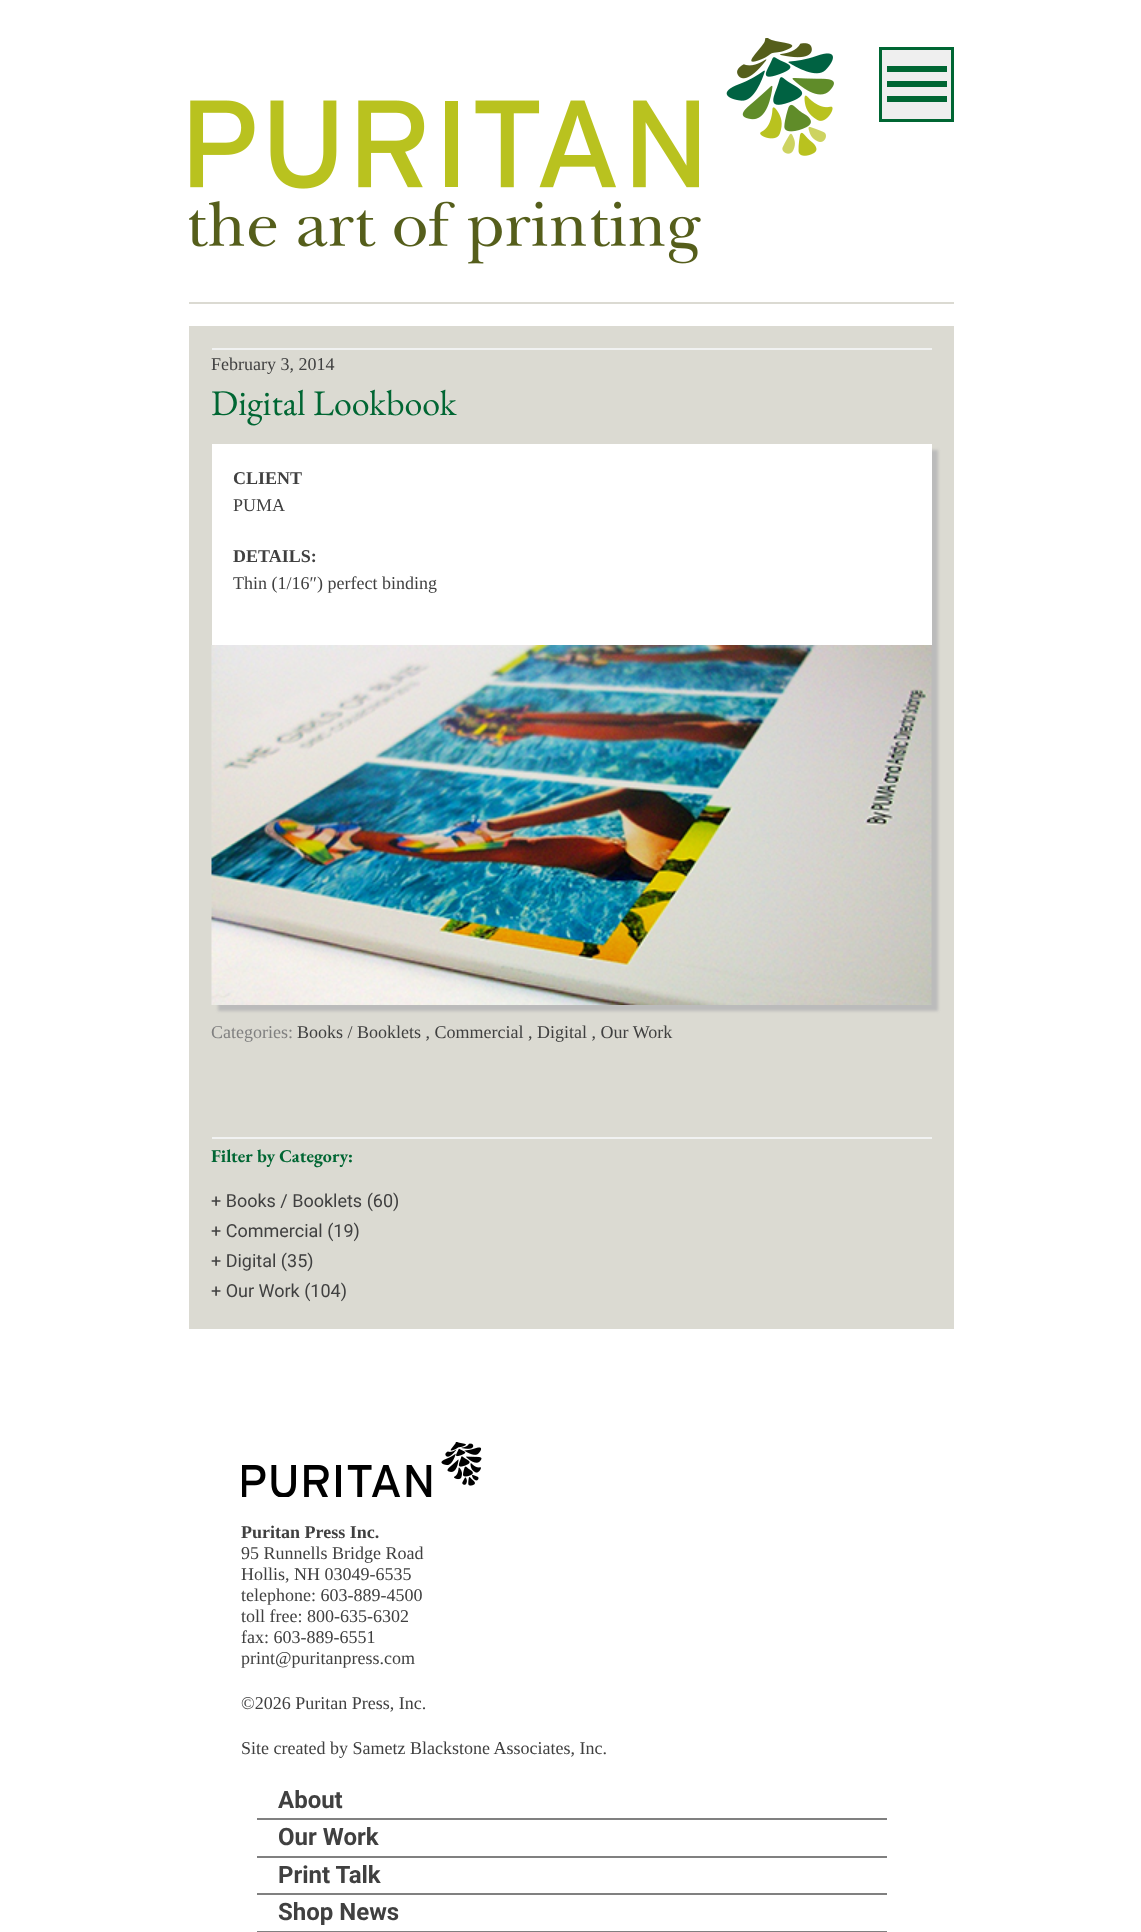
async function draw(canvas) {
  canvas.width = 1141
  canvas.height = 1932
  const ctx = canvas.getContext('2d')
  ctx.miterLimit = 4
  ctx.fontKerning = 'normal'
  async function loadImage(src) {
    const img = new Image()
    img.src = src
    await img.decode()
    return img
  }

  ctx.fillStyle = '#fff'
  ctx.fillRect(0, 0, 1141, 1932)
  ctx.fillStyle = '#dbdad2'
  ctx.fillRect(189, 302, 765, 2)
  ctx.drawImage(await loadImage('image0.png'), 189, 38, 645, 226)
  ctx.fillStyle = '#efefef'
  ctx.beginPath()
  ctx.rect(880.5, 48.5, 72, 72)
  ctx.fill()
  ctx.strokeStyle = '#063'
  ctx.lineWidth = 3
  ctx.stroke()
  ctx.fillStyle = '#063'
  ctx.fillRect(887, 66, 60, 6)
  ctx.fillRect(887, 81, 60, 6)
  ctx.fillRect(887, 96, 60, 6)
  ctx.fillStyle = '#dbdad2'
  ctx.fillRect(189, 326, 765, 1003)
  ctx.fillStyle = '#f1f2f2'
  ctx.fillRect(212, 348, 720, 2)
  ctx.font = '18px Liberation Serif'
  ctx.fillStyle = '#404040'
  ctx.fillText('February 3, 2014', 211, 370)
  ctx.font = '36px EB Garamond'
  ctx.fillStyle = '#063'
  ctx.fillText('Digital Lookbook', 211, 415)
  ctx.fillStyle = '#bbb'
  ctx.filter = 'blur(1.5px)'
  ctx.beginPath()
  ctx.rect(218, 450, 720, 561)
  ctx.fill()
  ctx.filter = 'none'
  ctx.fillStyle = '#fff'
  ctx.fillRect(212, 444, 720, 201)
  ctx.font = 'bold 18px Liberation Serif'
  ctx.fillStyle = '#404040'
  ctx.fillText('CLIENT', 233, 484)
  ctx.font = '18px Liberation Serif'
  ctx.fillText('PUMA', 233, 511)
  ctx.font = 'bold 18px Liberation Serif'
  ctx.fillText('DETAILS:', 233, 562)
  ctx.font = '18px Liberation Serif'
  ctx.fillText('Thin (1/16″) perfect binding', 233, 589)
  ctx.drawImage(await loadImage('image1.png'), 211, 645, 721, 360)
  ctx.fillStyle = '#808080'
  ctx.fillText('Categories:', 211, 1038)
  ctx.fillStyle = '#404040'
  ctx.fillText('Books / Booklets , Commercial , Digital , Our Work', 297, 1038)
  ctx.fillStyle = '#f1f2f2'
  ctx.fillRect(212, 1137, 720, 2)
  ctx.font = 'bold 18px EB Garamond'
  ctx.fillStyle = '#063'
  ctx.fillText('Filter by Category:', 211, 1162)
  ctx.font = '18px Roboto'
  ctx.fillStyle = '#404040'
  ctx.fillText('+ Books / Booklets (60)', 211, 1207)
  ctx.fillText('+ Commercial (19)', 211, 1237)
  ctx.fillText('+ Digital (35)', 211, 1267)
  ctx.fillText('+ Our Work (104)', 211, 1297)
  ctx.drawImage(await loadImage('image2.png'), 242, 1442, 240, 55)
  ctx.font = 'bold 18px Liberation Serif'
  ctx.fillText('Puritan Press Inc.', 241, 1538)
  ctx.font = '18px Liberation Serif'
  ctx.fillText('95 Runnells Bridge Road', 241, 1559)
  ctx.fillText('Hollis, NH 03049-6535', 241, 1580)
  ctx.fillText('telephone: 603-889-4500', 241, 1601)
  ctx.fillText('toll free: 800-635-6302', 241, 1622)
  ctx.fillText('fax: 603-889-6551', 241, 1643)
  ctx.fillText('print@puritanpress.com', 241, 1664)
  ctx.fillText('©2026 Puritan Press, Inc.', 241, 1709)
  ctx.fillText('Site created by Sametz Blackstone Associates, Inc.', 241, 1754)
  ctx.fillStyle = '#808080'
  ctx.fillRect(257, 1818, 630, 2)
  ctx.font = 'bold 24px Roboto'
  ctx.fillStyle = '#404040'
  ctx.fillText('About', 278, 1808)
  ctx.fillStyle = '#808080'
  ctx.fillRect(257, 1856, 630, 2)
  ctx.fillStyle = '#404040'
  ctx.fillText('Our Work', 278, 1845)
  ctx.fillStyle = '#808080'
  ctx.fillRect(257, 1893, 630, 2)
  ctx.fillStyle = '#404040'
  ctx.fillText('Print Talk', 278, 1883)
  ctx.fillStyle = '#808080'
  ctx.fillRect(257, 1931, 630, 1)
  ctx.fillStyle = '#404040'
  ctx.fillText('Shop News', 278, 1920)
}

draw(document.querySelector('canvas'))
